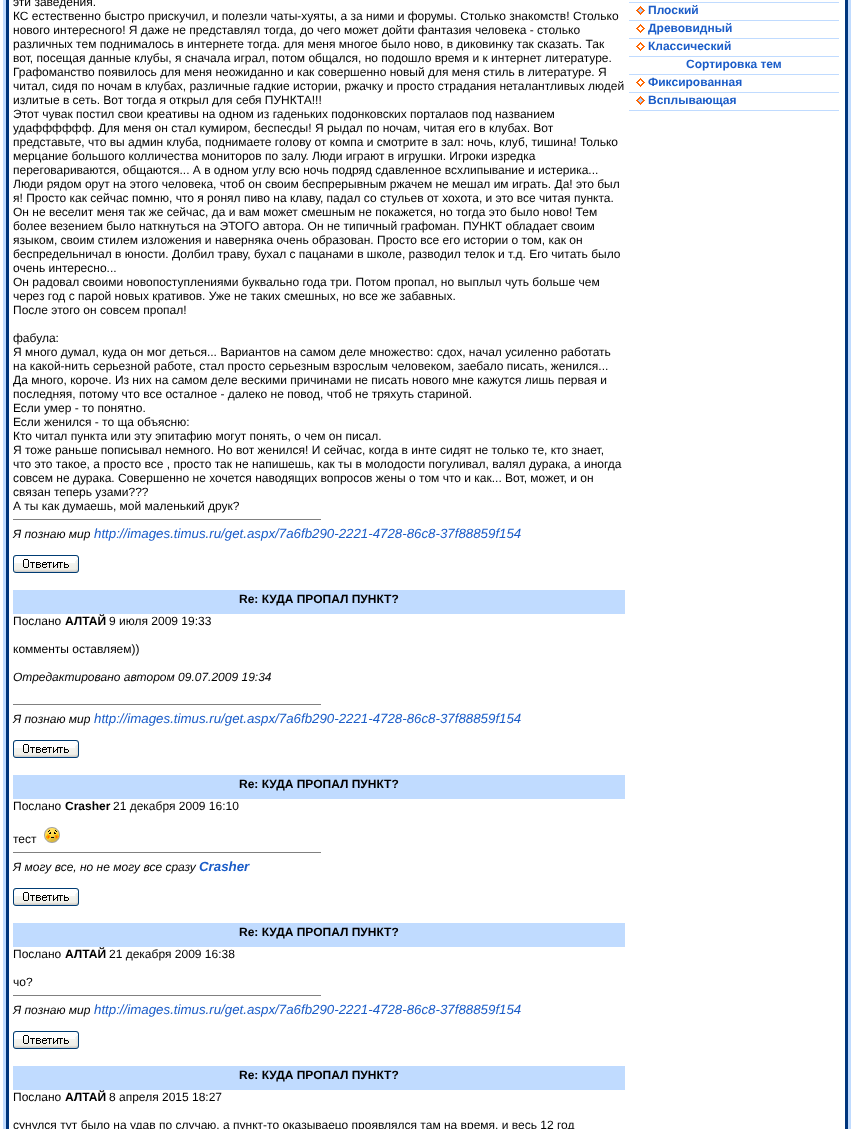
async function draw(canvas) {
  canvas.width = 854
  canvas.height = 1129
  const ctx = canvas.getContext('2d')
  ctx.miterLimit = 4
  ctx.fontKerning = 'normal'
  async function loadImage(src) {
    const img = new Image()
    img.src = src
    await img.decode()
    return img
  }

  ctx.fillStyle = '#fff'
  ctx.fillRect(0, 0, 854, 1129)
  ctx.fillStyle = '#c0dbff'
  ctx.fillRect(3, 0, 3, 1129)
  ctx.fillStyle = '#00357c'
  ctx.fillRect(6, 0, 3, 1129)
  ctx.font = '12px Liberation Sans'
  ctx.fillStyle = '#000'
  ctx.fillText('эти заведения.', 13, 6)
  ctx.fillText('КС естественно быстро прискучил, и полезли чаты-хуяты, а за ними и форумы. Столько знакомств! Столько', 13, 20)
  ctx.fillText('нового интересного! Я даже не представлял тогда, до чего может дойти фантазия человека - столько', 13, 34)
  ctx.fillText('различных тем поднималось в интернете тогда. для меня многое было ново, в диковинку так сказать. Так', 13, 48)
  ctx.fillText('вот, посещая данные клубы, я сначала играл, потом общался, но подошло время и к интернет литературе.', 13, 62)
  ctx.fillText('Графоманство появилось для меня неожиданно и как совершенно новый для меня стиль в литературе. Я', 13, 76)
  ctx.fillText('читал, сидя по ночам в клубах, различные гадкие истории, ржачку и просто страдания неталантливых людей', 13, 90)
  ctx.fillText('излитые в сеть. Вот тогда я открыл для себя ПУНКТА!!!', 13, 104)
  ctx.fillText('Этот чувак постил свои креативы на одном из гаденьких подонковских порталаов под названием', 13, 118)
  ctx.fillText('удафффффф. Для меня он стал кумиром, беспесды! Я рыдал по ночам, читая его в клубах. Вот', 13, 132)
  ctx.fillText('представьте, что вы админ клуба, поднимаете голову от компа и смотрите в зал: ночь, клуб, тишина! Только', 13, 146)
  ctx.fillText('мерцание большого колличества мониторов по залу. Люди играют в игрушки. Игроки изредка', 13, 160)
  ctx.fillText('переговариваются, общаются... А в одном углу всю ночь подряд сдавленное всхлипывание и истерика...', 13, 174)
  ctx.fillText('Люди рядом орут на этого человека, чтоб он своим беспрерывным ржачем не мешал им играть. Да! это был', 13, 188)
  ctx.fillText('я! Просто как сейчас помню, что я ронял пиво на клаву, падал со стульев от хохота, и это все читая пункта.', 13, 202)
  ctx.fillText('Он не веселит меня так же сейчас, да и вам может смешным не покажется, но тогда это было ново! Тем', 13, 216)
  ctx.fillText('более везением было наткнуться на ЭТОГО автора. Он не типичный графоман. ПУНКТ обладает своим', 13, 230)
  ctx.fillText('языком, своим стилем изложения и наверняка очень образован. Просто все его истории о том, как он', 13, 244)
  ctx.fillText('беспредельничал в юности. Долбил траву, бухал с пацанами в школе, разводил телок и т.д. Его читать было', 13, 258)
  ctx.fillText('очень интересно...', 13, 272)
  ctx.fillText('Он радовал своими новопоступлениями буквально года три. Потом пропал, но выплыл чуть больше чем', 13, 286)
  ctx.fillText('через год с парой новых кративов. Уже не таких смешных, но все же забавных.', 13, 300)
  ctx.fillText('После этого он совсем пропал!', 13, 314)
  ctx.fillText('фабула:', 13, 342)
  ctx.fillText('Я много думал, куда он мог деться... Вариантов на самом деле множество: сдох, начал усиленно работать', 13, 356)
  ctx.fillText('на какой-нить серьезной работе, стал просто серьезным взрослым человеком, заебало писать, женился...', 13, 370)
  ctx.fillText('Да много, короче. Из них на самом деле вескими причинами не писать нового мне кажутся лишь первая и', 13, 384)
  ctx.fillText('последняя, потому что все осталное - далеко не повод, чтоб не тряхуть стариной.', 13, 398)
  ctx.fillText('Если умер - то понятно.', 13, 412)
  ctx.fillText('Если женился - то ща объясню:', 13, 426)
  ctx.fillText('Кто читал пункта или эту эпитафию могут понять, о чем он писал.', 13, 440)
  ctx.fillText('Я тоже раньше пописывал немного. Но вот женился! И сейчас, когда в инте сидят не только те, кто знает,', 13, 454)
  ctx.fillText('что это такое, а просто все , просто так не напишешь, как ты в молодости погуливал, валял дурака, а иногда', 13, 468)
  ctx.fillText('совсем не дурака. Совершенно не хочется наводящих вопросов жены о том что и как... Вот, может, и он', 13, 482)
  ctx.fillText('связан теперь узами???', 13, 496)
  ctx.fillText('А ты как думаешь, мой маленький друк?', 13, 510)
  ctx.fillStyle = '#808080'
  ctx.fillRect(13, 519, 308, 1)
  ctx.font = 'italic 12px Liberation Sans'
  ctx.fillStyle = '#000'
  ctx.fillText('Я познаю мир', 13, 538)
  ctx.font = 'italic 13.3px Liberation Sans'
  ctx.fillStyle = '#1a5cc8'
  ctx.fillText('http://images.timus.ru/get.aspx/7a6fb290-2221-4728-86c8-37f88859f154', 94, 538)
  ctx.drawImage(await loadImage('image0.png'), 13, 555, 66, 18)
  ctx.fillStyle = '#c0dbff'
  ctx.fillRect(13, 590, 612, 24)
  ctx.font = 'bold 12px Liberation Sans'
  ctx.fillStyle = '#000'
  ctx.fillText('Re: КУДА ПРОПАЛ ПУНКТ?', 239, 603)
  ctx.font = '12px Liberation Sans'
  ctx.fillText('Послано', 13, 625)
  ctx.font = 'bold 12px Liberation Sans'
  ctx.fillText('АЛТАЙ', 65, 625)
  ctx.font = '12px Liberation Sans'
  ctx.fillText('9 июля 2009 19:33', 109, 625)
  ctx.fillText('комменты оставляем))', 13, 653)
  ctx.font = 'italic 12px Liberation Sans'
  ctx.fillText('Отредактировано автором 09.07.2009 19:34', 13, 681)
  ctx.fillStyle = '#808080'
  ctx.fillRect(13, 704, 308, 1)
  ctx.fillStyle = '#000'
  ctx.fillText('Я познаю мир', 13, 723)
  ctx.font = 'italic 13.3px Liberation Sans'
  ctx.fillStyle = '#1a5cc8'
  ctx.fillText('http://images.timus.ru/get.aspx/7a6fb290-2221-4728-86c8-37f88859f154', 94, 723)
  ctx.drawImage(await loadImage('image0.png'), 13, 740, 66, 18)
  ctx.fillStyle = '#c0dbff'
  ctx.fillRect(13, 775, 612, 24)
  ctx.font = 'bold 12px Liberation Sans'
  ctx.fillStyle = '#000'
  ctx.fillText('Re: КУДА ПРОПАЛ ПУНКТ?', 239, 788)
  ctx.font = '12px Liberation Sans'
  ctx.fillText('Послано', 13, 810)
  ctx.font = 'bold 12px Liberation Sans'
  ctx.fillText('Crasher', 65, 810)
  ctx.font = '12px Liberation Sans'
  ctx.fillText('21 декабря 2009 16:10', 113, 810)
  ctx.fillText('тест', 13, 843)
  ctx.drawImage(await loadImage('image1.png'), 44, 827, 16, 16)
  ctx.fillStyle = '#808080'
  ctx.fillRect(13, 852, 308, 1)
  ctx.font = 'italic 12px Liberation Sans'
  ctx.fillStyle = '#000'
  ctx.fillText('Я могу все, но не могу все сразу', 13, 871)
  ctx.font = 'italic bold 13.3px Liberation Sans'
  ctx.fillStyle = '#1a5cc8'
  ctx.fillText('Crasher', 199, 871)
  ctx.drawImage(await loadImage('image0.png'), 13, 888, 66, 18)
  ctx.fillStyle = '#c0dbff'
  ctx.fillRect(13, 923, 612, 24)
  ctx.font = 'bold 12px Liberation Sans'
  ctx.fillStyle = '#000'
  ctx.fillText('Re: КУДА ПРОПАЛ ПУНКТ?', 239, 936)
  ctx.font = '12px Liberation Sans'
  ctx.fillText('Послано', 13, 958)
  ctx.font = 'bold 12px Liberation Sans'
  ctx.fillText('АЛТАЙ', 65, 958)
  ctx.font = '12px Liberation Sans'
  ctx.fillText('21 декабря 2009 16:38', 109, 958)
  ctx.fillText('чо?', 13, 986)
  ctx.fillStyle = '#808080'
  ctx.fillRect(13, 995, 308, 1)
  ctx.font = 'italic 12px Liberation Sans'
  ctx.fillStyle = '#000'
  ctx.fillText('Я познаю мир', 13, 1014)
  ctx.font = 'italic 13.3px Liberation Sans'
  ctx.fillStyle = '#1a5cc8'
  ctx.fillText('http://images.timus.ru/get.aspx/7a6fb290-2221-4728-86c8-37f88859f154', 94, 1014)
  ctx.drawImage(await loadImage('image0.png'), 13, 1031, 66, 18)
  ctx.fillStyle = '#c0dbff'
  ctx.fillRect(13, 1066, 612, 24)
  ctx.font = 'bold 12px Liberation Sans'
  ctx.fillStyle = '#000'
  ctx.fillText('Re: КУДА ПРОПАЛ ПУНКТ?', 239, 1079)
  ctx.font = '12px Liberation Sans'
  ctx.fillText('Послано', 13, 1101)
  ctx.font = 'bold 12px Liberation Sans'
  ctx.fillText('АЛТАЙ', 65, 1101)
  ctx.font = '12px Liberation Sans'
  ctx.fillText('8 апреля 2015 18:27', 109, 1101)
  ctx.fillText('сунулся тут было на удав по случаю, а пункт-то оказываецо проявлялся там на время, и весь 12 год', 13, 1129)
  ctx.fillStyle = '#c0dbff'
  ctx.fillRect(629, 2, 210, 1)
  ctx.fillRect(629, 20, 210, 1)
  ctx.drawImage(await loadImage('image2.png'), 636, 6, 9, 9)
  ctx.font = 'bold 12px Liberation Sans'
  ctx.fillStyle = '#1a5cc8'
  ctx.fillText('Плоский', 648, 14)
  ctx.fillStyle = '#c0dbff'
  ctx.fillRect(629, 38, 210, 1)
  ctx.drawImage(await loadImage('image3.png'), 636, 24, 9, 9)
  ctx.fillStyle = '#1a5cc8'
  ctx.fillText('Древовидный', 648, 32)
  ctx.fillStyle = '#c0dbff'
  ctx.fillRect(629, 56, 210, 1)
  ctx.drawImage(await loadImage('image3.png'), 636, 42, 9, 9)
  ctx.fillStyle = '#1a5cc8'
  ctx.fillText('Классический', 648, 50)
  ctx.fillStyle = '#c0dbff'
  ctx.fillRect(629, 74, 210, 1)
  ctx.fillStyle = '#1a5cc8'
  ctx.fillText('Сортировка тем', 686, 68)
  ctx.fillStyle = '#c0dbff'
  ctx.fillRect(629, 92, 210, 1)
  ctx.drawImage(await loadImage('image3.png'), 636, 78, 9, 9)
  ctx.fillStyle = '#1a5cc8'
  ctx.fillText('Фиксированная', 648, 86)
  ctx.fillStyle = '#c0dbff'
  ctx.fillRect(629, 110, 210, 1)
  ctx.drawImage(await loadImage('image2.png'), 636, 96, 9, 9)
  ctx.fillStyle = '#1a5cc8'
  ctx.fillText('Всплывающая', 648, 104)
  ctx.fillStyle = '#00357c'
  ctx.fillRect(845, 0, 3, 1129)
  ctx.fillStyle = '#c0dbff'
  ctx.fillRect(848, 0, 3, 1129)
}

draw(document.querySelector('canvas'))
